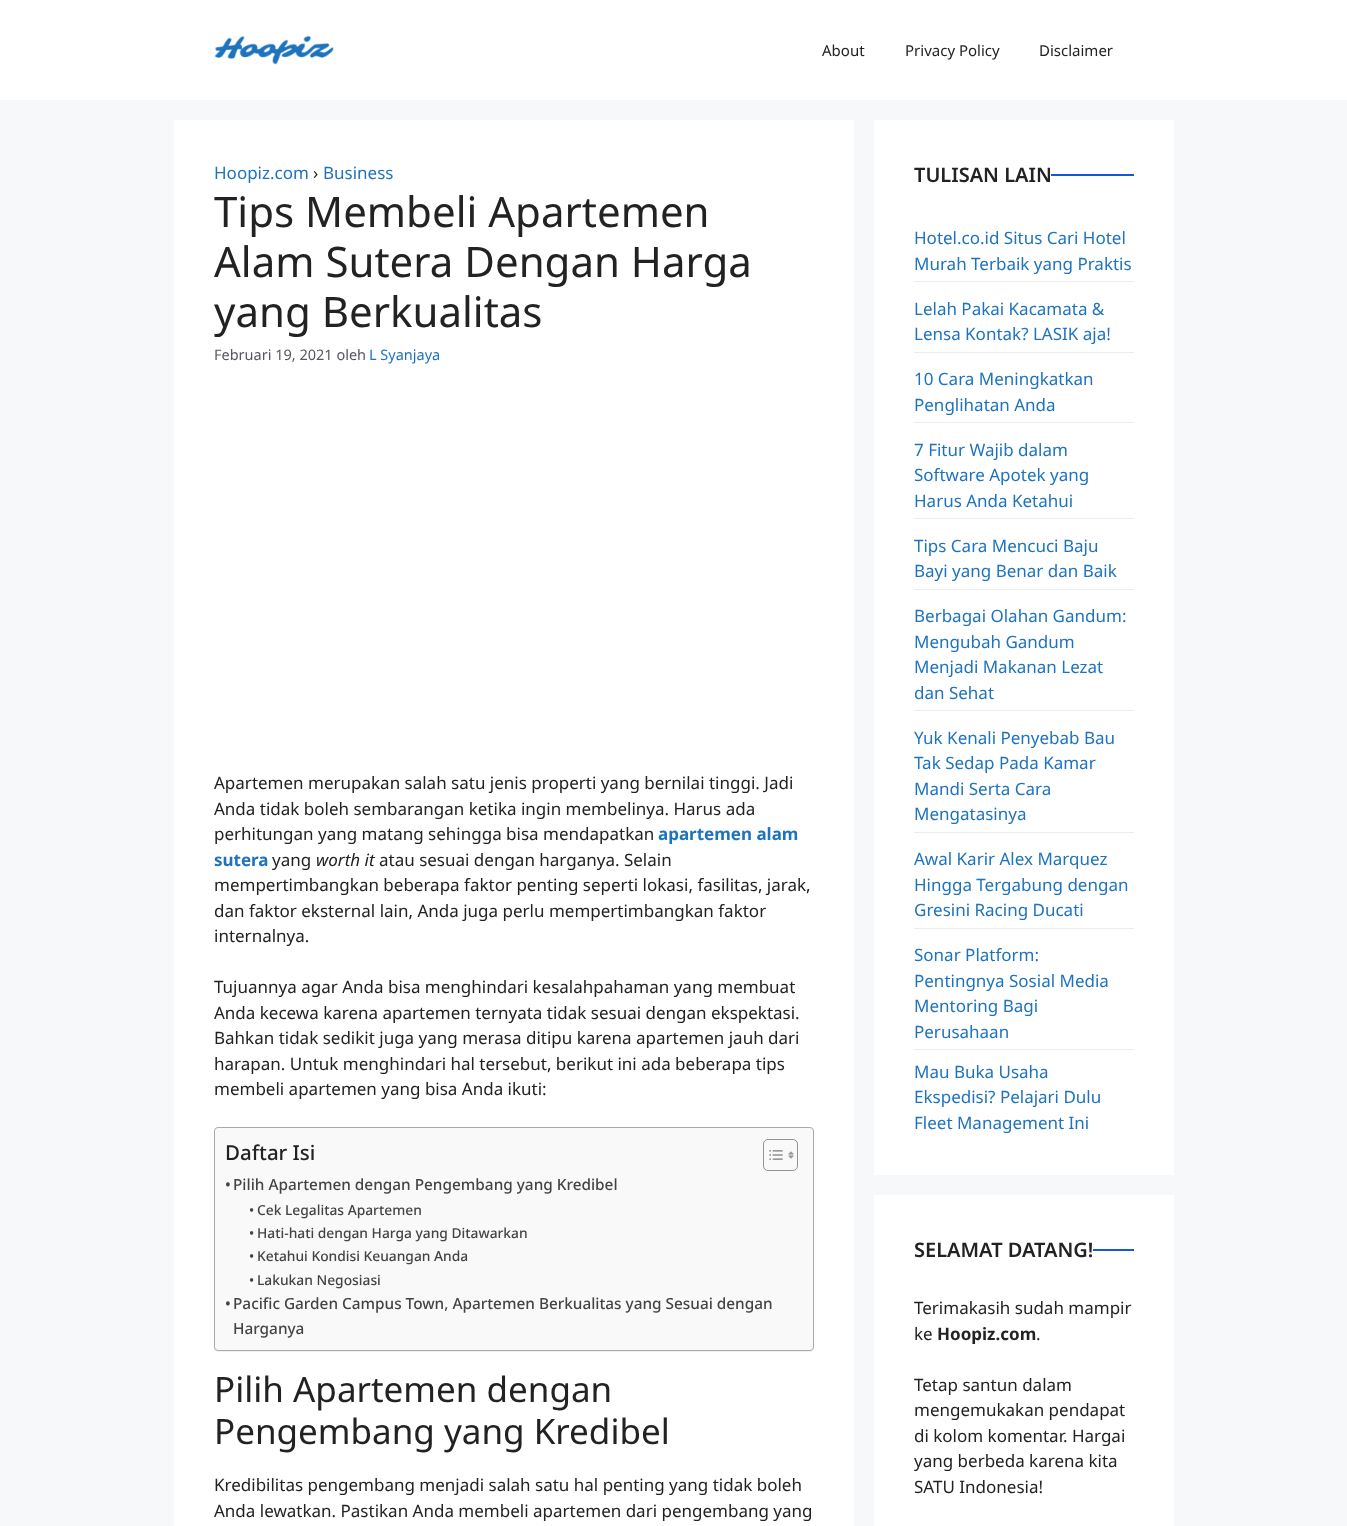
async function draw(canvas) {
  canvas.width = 1347
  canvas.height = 1526
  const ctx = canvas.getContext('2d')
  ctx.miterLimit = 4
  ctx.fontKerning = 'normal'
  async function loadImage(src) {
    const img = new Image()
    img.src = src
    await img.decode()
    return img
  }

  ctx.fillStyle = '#f7f8f9'
  ctx.fillRect(0, 0, 1347, 1526)
  ctx.fillStyle = '#fff'
  ctx.fillRect(0, 0, 1347, 100)
  ctx.drawImage(await loadImage('image0.png'), 214, 35, 120, 30)
  ctx.font = '15px Noto Sans'
  ctx.fillStyle = '#222'
  ctx.fillText('About', 822, 56)
  ctx.fillText('Privacy Policy', 905, 56)
  ctx.fillText('Disclaimer', 1039, 56)
  ctx.fillStyle = '#fff'
  ctx.fillRect(174, 120, 680, 1406)
  ctx.font = '17px Noto Sans'
  ctx.fillStyle = '#1e73be'
  ctx.fillText('Hoopiz.com', 214, 179)
  ctx.fillStyle = '#222'
  ctx.fillText('›', 313, 179)
  ctx.fillStyle = '#1e73be'
  ctx.fillText('Business', 323, 179)
  ctx.font = '42px Noto Sans'
  ctx.fillStyle = '#222'
  ctx.fillText('Tips Membeli Apartemen', 214, 227)
  ctx.fillText('Alam Sutera Dengan Harga', 214, 277)
  ctx.fillText('yang Berkualitas', 214, 327)
  ctx.font = '14.5px Noto Sans'
  ctx.fillStyle = '#575760'
  ctx.fillText('Februari 19, 2021 oleh', 214, 360)
  ctx.fillStyle = '#1e73be'
  ctx.fillText('L Syanjaya', 369, 360)
  ctx.font = '17px Noto Sans'
  ctx.fillStyle = '#222'
  ctx.fillText('Apartemen merupakan salah satu jenis properti yang bernilai tinggi. Jadi', 214, 789)
  ctx.fillText('Anda tidak boleh sembarangan ketika ingin membelinya. Harus ada', 214, 815)
  ctx.fillText('perhitungan yang matang sehingga bisa mendapatkan', 214, 840)
  ctx.font = 'bold 17px Noto Sans'
  ctx.fillStyle = '#1e73be'
  ctx.fillText('apartemen alam', 658, 840)
  ctx.fillText('sutera', 214, 866)
  ctx.font = '17px Noto Sans'
  ctx.fillStyle = '#222'
  ctx.fillText('yang', 272, 866)
  ctx.font = 'italic 17px Noto Sans'
  ctx.fillText('worth it', 316, 866)
  ctx.font = '17px Noto Sans'
  ctx.fillText('atau sesuai dengan harganya. Selain', 379, 866)
  ctx.fillText('mempertimbangkan beberapa faktor penting seperti lokasi, fasilitas, jarak,', 214, 891)
  ctx.fillText('dan faktor eksternal lain, Anda juga perlu mempertimbangkan faktor', 214, 917)
  ctx.fillText('internalnya.', 214, 942)
  ctx.fillText('Tujuannya agar Anda bisa menghindari kesalahpahaman yang membuat', 214, 993)
  ctx.fillText('Anda kecewa karena apartemen ternyata tidak sesuai dengan ekspektasi.', 214, 1019)
  ctx.fillText('Bahkan tidak sedikit juga yang merasa ditipu karena apartemen jauh dari', 214, 1044)
  ctx.fillText('harapan. Untuk menghindari hal tersebut, berikut ini ada beberapa tips', 214, 1070)
  ctx.fillText('membeli apartemen yang bisa Anda ikuti:', 214, 1095)
  ctx.fillStyle = '#0000000d'
  ctx.filter = 'blur(0.5px)'
  ctx.beginPath()
  ctx.roundRect(214, 1128, 600, 224, 4)
  ctx.fill()
  ctx.filter = 'none'
  ctx.fillStyle = '#f9f9f9'
  ctx.beginPath()
  ctx.roundRect(214.5, 1127.5, 599, 223, 3.5)
  ctx.fill()
  ctx.strokeStyle = '#aaa'
  ctx.stroke()
  ctx.font = '500 20.5px Noto Sans'
  ctx.fillStyle = '#222'
  ctx.fillText('Daftar Isi', 225, 1160)
  ctx.beginPath()
  ctx.roundRect(763.5, 1139.5, 34, 31, 4.5)
  ctx.strokeStyle = '#999191'
  ctx.stroke()
  ctx.drawImage(await loadImage('image1.png'), 769, 1150, 14, 10)
  ctx.drawImage(await loadImage('image2.png'), 788, 1151, 6, 8)
  ctx.font = '500 15.35px Noto Sans'
  ctx.fillStyle = '#444'
  ctx.fillText('•', 225, 1190)
  ctx.fillText('Pilih Apartemen dengan Pengembang yang Kredibel', 233, 1190)
  ctx.font = '500 13.8px Noto Sans'
  ctx.fillText('•', 249, 1215)
  ctx.fillText('Cek Legalitas Apartemen', 257, 1215)
  ctx.fillText('•', 249, 1238)
  ctx.fillText('Hati-hati dengan Harga yang Ditawarkan', 257, 1238)
  ctx.fillText('•', 249, 1261)
  ctx.fillText('Ketahui Kondisi Keuangan Anda', 257, 1261)
  ctx.fillText('•', 249, 1285)
  ctx.fillText('Lakukan Negosiasi', 257, 1285)
  ctx.font = '500 15.35px Noto Sans'
  ctx.fillText('•', 225, 1309)
  ctx.fillText('Pacific Garden Campus Town, Apartemen Berkualitas yang Sesuai dengan', 233, 1309)
  ctx.fillText('Harganya', 233, 1334)
  ctx.font = '35px Noto Sans'
  ctx.fillStyle = '#222'
  ctx.fillText('Pilih Apartemen dengan', 214, 1402)
  ctx.fillText('Pengembang yang Kredibel', 214, 1444)
  ctx.font = '17px Noto Sans'
  ctx.fillText('Kredibilitas pengembang menjadi salah satu hal penting yang tidak boleh', 214, 1491)
  ctx.fillText('Anda lewatkan. Pastikan Anda membeli apartemen dari pengembang yang', 214, 1517)
  ctx.fillStyle = '#fff'
  ctx.fillRect(874, 120, 300, 1055)
  ctx.font = '600 20px Noto Sans'
  ctx.fillStyle = '#222'
  ctx.fillText('TULISAN LAIN', 914, 182)
  ctx.fillStyle = '#1558d6'
  ctx.fillRect(1051, 174, 83, 2)
  ctx.fillStyle = '#eee'
  ctx.fillRect(914, 281, 220, 1)
  ctx.font = '17px Noto Sans'
  ctx.fillStyle = '#1e73be'
  ctx.fillText('Hotel.co.id Situs Cari Hotel', 914, 244)
  ctx.fillText('Murah Terbaik yang Praktis', 914, 270)
  ctx.fillStyle = '#eee'
  ctx.fillRect(914, 352, 220, 1)
  ctx.fillStyle = '#1e73be'
  ctx.fillText('Lelah Pakai Kacamata &', 914, 315)
  ctx.fillText('Lensa Kontak? LASIK aja!', 914, 340)
  ctx.fillStyle = '#eee'
  ctx.fillRect(914, 422, 220, 1)
  ctx.fillStyle = '#1e73be'
  ctx.fillText('10 Cara Meningkatkan', 914, 385)
  ctx.fillText('Penglihatan Anda', 914, 411)
  ctx.fillStyle = '#eee'
  ctx.fillRect(914, 518, 220, 1)
  ctx.fillStyle = '#1e73be'
  ctx.fillText('7 Fitur Wajib dalam', 914, 456)
  ctx.fillText('Software Apotek yang', 914, 481)
  ctx.fillText('Harus Anda Ketahui', 914, 507)
  ctx.fillStyle = '#eee'
  ctx.fillRect(914, 589, 220, 1)
  ctx.fillStyle = '#1e73be'
  ctx.fillText('Tips Cara Mencuci Baju', 914, 552)
  ctx.fillText('Bayi yang Benar dan Baik', 914, 577)
  ctx.fillStyle = '#eee'
  ctx.fillRect(914, 710, 220, 1)
  ctx.fillStyle = '#1e73be'
  ctx.fillText('Berbagai Olahan Gandum:', 914, 622)
  ctx.fillText('Mengubah Gandum', 914, 648)
  ctx.fillText('Menjadi Makanan Lezat', 914, 673)
  ctx.fillText('dan Sehat', 914, 699)
  ctx.fillStyle = '#eee'
  ctx.fillRect(914, 832, 220, 1)
  ctx.fillStyle = '#1e73be'
  ctx.fillText('Yuk Kenali Penyebab Bau', 914, 744)
  ctx.fillText('Tak Sedap Pada Kamar', 914, 769)
  ctx.fillText('Mandi Serta Cara', 914, 795)
  ctx.fillText('Mengatasinya', 914, 820)
  ctx.fillStyle = '#eee'
  ctx.fillRect(914, 928, 220, 1)
  ctx.fillStyle = '#1e73be'
  ctx.fillText('Awal Karir Alex Marquez', 914, 865)
  ctx.fillText('Hingga Tergabung dengan', 914, 891)
  ctx.fillText('Gresini Racing Ducati', 914, 916)
  ctx.fillStyle = '#eee'
  ctx.fillRect(914, 1049, 220, 1)
  ctx.fillStyle = '#1e73be'
  ctx.fillText('Sonar Platform:', 914, 961)
  ctx.fillText('Pentingnya Sosial Media', 914, 987)
  ctx.fillText('Mentoring Bagi', 914, 1012)
  ctx.fillText('Perusahaan', 914, 1038)
  ctx.fillText('Mau Buka Usaha', 914, 1078)
  ctx.fillText('Ekspedisi? Pelajari Dulu', 914, 1103)
  ctx.fillText('Fleet Management Ini', 914, 1129)
  ctx.fillStyle = '#fff'
  ctx.fillRect(874, 1195, 300, 331)
  ctx.font = '600 20px Noto Sans'
  ctx.fillStyle = '#222'
  ctx.fillText('SELAMAT DATANG!', 914, 1257)
  ctx.fillStyle = '#1558d6'
  ctx.fillRect(1093, 1249, 41, 2)
  ctx.font = '17px Noto Sans'
  ctx.fillStyle = '#222'
  ctx.fillText('Terimakasih sudah mampir', 914, 1314)
  ctx.fillText('ke', 914, 1340)
  ctx.font = 'bold 17px Noto Sans'
  ctx.fillText('Hoopiz.com', 937, 1340)
  ctx.font = '17px Noto Sans'
  ctx.fillText('.', 1036, 1340)
  ctx.fillText('Tetap santun dalam', 914, 1391)
  ctx.fillText('mengemukakan pendapat', 914, 1416)
  ctx.fillText('di kolom komentar. Hargai', 914, 1442)
  ctx.fillText('yang berbeda karena kita', 914, 1467)
  ctx.fillText('SATU Indonesia!', 914, 1493)
}

draw(document.querySelector('canvas'))
